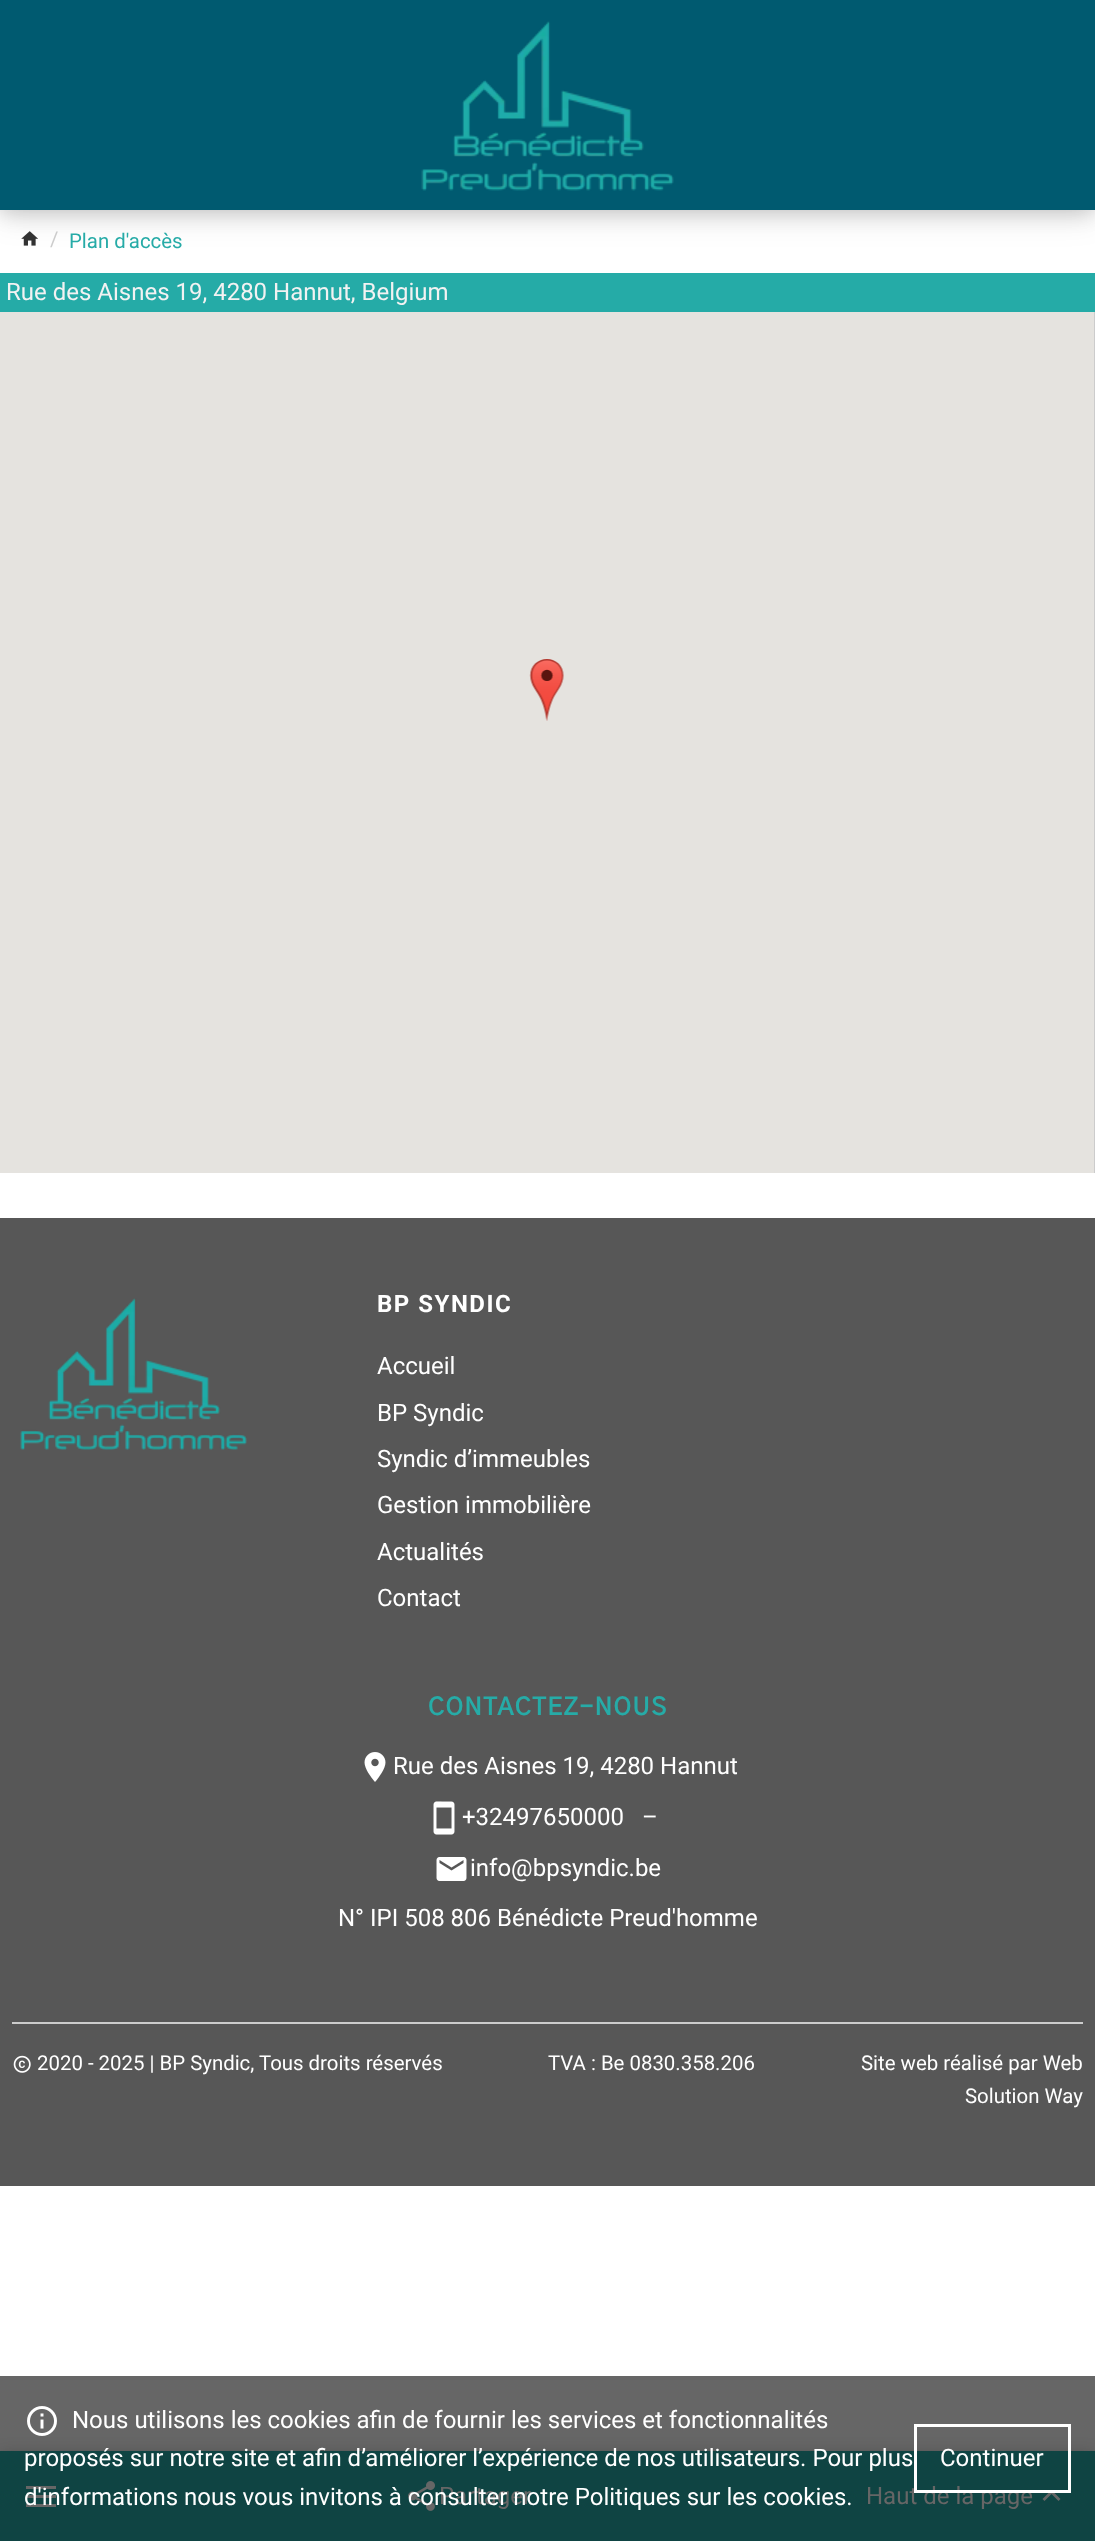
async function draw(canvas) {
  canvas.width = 1095
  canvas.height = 2541
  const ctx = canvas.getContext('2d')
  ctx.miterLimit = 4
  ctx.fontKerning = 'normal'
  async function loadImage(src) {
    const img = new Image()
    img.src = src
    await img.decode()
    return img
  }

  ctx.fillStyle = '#fff'
  ctx.fillRect(0, 0, 1095, 2541)
  ctx.fillStyle = '#666'
  ctx.fillRect(0, 2376, 1095, 75)
  ctx.drawImage(await loadImage('image1.png'), 21, 231, 17, 15)
  ctx.fillStyle = '#0000001a'
  ctx.filter = 'blur(15px)'
  ctx.beginPath()
  ctx.rect(0, 8, 1095, 210)
  ctx.fill()
  ctx.filter = 'none'
  ctx.fillStyle = '#00000033'
  ctx.filter = 'blur(11px)'
  ctx.beginPath()
  ctx.rect(0, 0, 1095, 210)
  ctx.fill()
  ctx.filter = 'none'
  ctx.fillStyle = '#005a70'
  ctx.fillRect(0, 0, 1095, 210)
  ctx.drawImage(await loadImage('image0.png'), 421, 21, 253, 170)
  ctx.font = '20.4px Roboto'
  ctx.fillStyle = '#ccc'
  ctx.fillText('/', 50, 246)
  ctx.fillStyle = '#26aba7'
  ctx.fillText('Plan d\'accès', 69, 248)
  ctx.fillStyle = '#25aba7'
  ctx.fillRect(0, 273, 1095, 39)
  ctx.font = '24px Roboto'
  ctx.fillStyle = '#f2f2f2'
  ctx.fillText('Rue des Aisnes 19, 4280 Hannut, Belgium', 6, 300)
  ctx.fillStyle = '#ccc'
  ctx.fillRect(1094, 312, 1, 861)
  ctx.fillStyle = '#e5e3df'
  ctx.fillRect(0, 312, 1094, 861)
  ctx.drawImage(await loadImage('image2.png'), 529, 659, 35, 62)
  ctx.fillStyle = '#575757'
  ctx.fillRect(0, 1218, 1095, 968)
  ctx.drawImage(await loadImage('image3.png'), 20, 1298, 227, 152)
  ctx.letterSpacing = '1.5px'
  ctx.font = 'bold 24px Roboto'
  ctx.fillStyle = '#fff'
  ctx.fillText('BP SYNDIC', 377, 1312)
  ctx.letterSpacing = '0px'
  ctx.font = '24px Roboto'
  ctx.fillText('Accueil', 377, 1374)
  ctx.fillText('BP Syndic', 377, 1421)
  ctx.fillText('Syndic d’immeubles', 377, 1467)
  ctx.fillText('Gestion immobilière', 377, 1513)
  ctx.fillText('Actualités', 377, 1560)
  ctx.fillText('Contact', 377, 1606)
  ctx.letterSpacing = '1.5px'
  ctx.font = 'bold 24px "Gothic A1"'
  ctx.fillStyle = '#26aba7'
  ctx.fillText('CONTACTEZ-NOUS', 428, 1715)
  ctx.drawImage(await loadImage('image4.png'), 364, 1752, 22, 30)
  ctx.letterSpacing = '0px'
  ctx.font = '24px Roboto'
  ctx.fillStyle = '#fff'
  ctx.fillText('Rue des Aisnes 19, 4280 Hannut', 393, 1774)
  ctx.drawImage(await loadImage('image5.png'), 433, 1801, 22, 34)
  ctx.fillText('+32497650000', 462, 1825)
  ctx.fillText('–', 642, 1825)
  ctx.drawImage(await loadImage('image6.png'), 436, 1857, 31, 24)
  ctx.fillText('info@bpsyndic.be', 470, 1876)
  ctx.fillText('N° IPI 508 806 Bénédicte Preud\'homme', 338, 1926)
  ctx.fillStyle = '#ccc'
  ctx.fillRect(12, 2022, 1071, 2)
  ctx.drawImage(await loadImage('image7.png'), 13, 2055, 18, 18)
  ctx.font = '20.4px Roboto'
  ctx.fillStyle = '#fff'
  ctx.fillText('2020 - 2025 | BP Syndic, Tous droits réservés', 37, 2070)
  ctx.fillText('TVA : Be 0830.358.206', 548, 2070)
  ctx.fillText('Site web réalisé par Web', 861, 2070)
  ctx.fillText('Solution Way', 965, 2103)
  ctx.fillStyle = '#00000033'
  ctx.filter = 'blur(7.5px)'
  ctx.beginPath()
  ctx.rect(0, 2453, 1095, 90)
  ctx.fill()
  ctx.filter = 'none'
  ctx.drawImage(await loadImage('image8.png'), 27, 2406, 30, 30)
  ctx.font = '24px Roboto'
  ctx.fillStyle = '#fff'
  ctx.fillText('Nous utilisons les cookies afin de fournir les services et fonctionnalités', 72, 2428)
  ctx.fillStyle = '#0f4443'
  ctx.fillRect(0, 2451, 1095, 90)
  ctx.fillStyle = '#fff'
  ctx.fillText('proposés sur notre site et afin d’améliorer l’expérience de nos utilisateurs. Pour plus', 24, 2466)
  ctx.fillStyle = '#666'
  ctx.fillRect(26, 2486, 30, 3)
  ctx.fillRect(26, 2495, 30, 3)
  ctx.fillRect(26, 2504, 30, 3)
  ctx.drawImage(await loadImage('image9.png'), 408, 2481, 27, 30)
  ctx.fillText('Partager', 439, 2504)
  ctx.fillStyle = '#fff'
  ctx.fillText('d\'informations nous vous invitons à consulter notre Politiques sur les cookies.', 24, 2505)
  ctx.fillStyle = '#666'
  ctx.fillText('Haut de la page', 866, 2504)
  ctx.beginPath()
  ctx.moveTo(1044.5, 2501)
  ctx.lineTo(1042.5, 2499)
  ctx.lineTo(1051.5, 2490)
  ctx.lineTo(1060.5, 2499)
  ctx.lineTo(1058.5, 2501)
  ctx.lineTo(1051.5, 2494)
  ctx.closePath()
  ctx.fill()
  ctx.strokeStyle = '#fff'
  ctx.lineWidth = 3
  ctx.strokeRect(915.5, 2425.5, 154, 66)
  ctx.fillStyle = '#fff'
  ctx.fillText('Continuer', 940, 2466)
}

draw(document.querySelector('canvas'))
